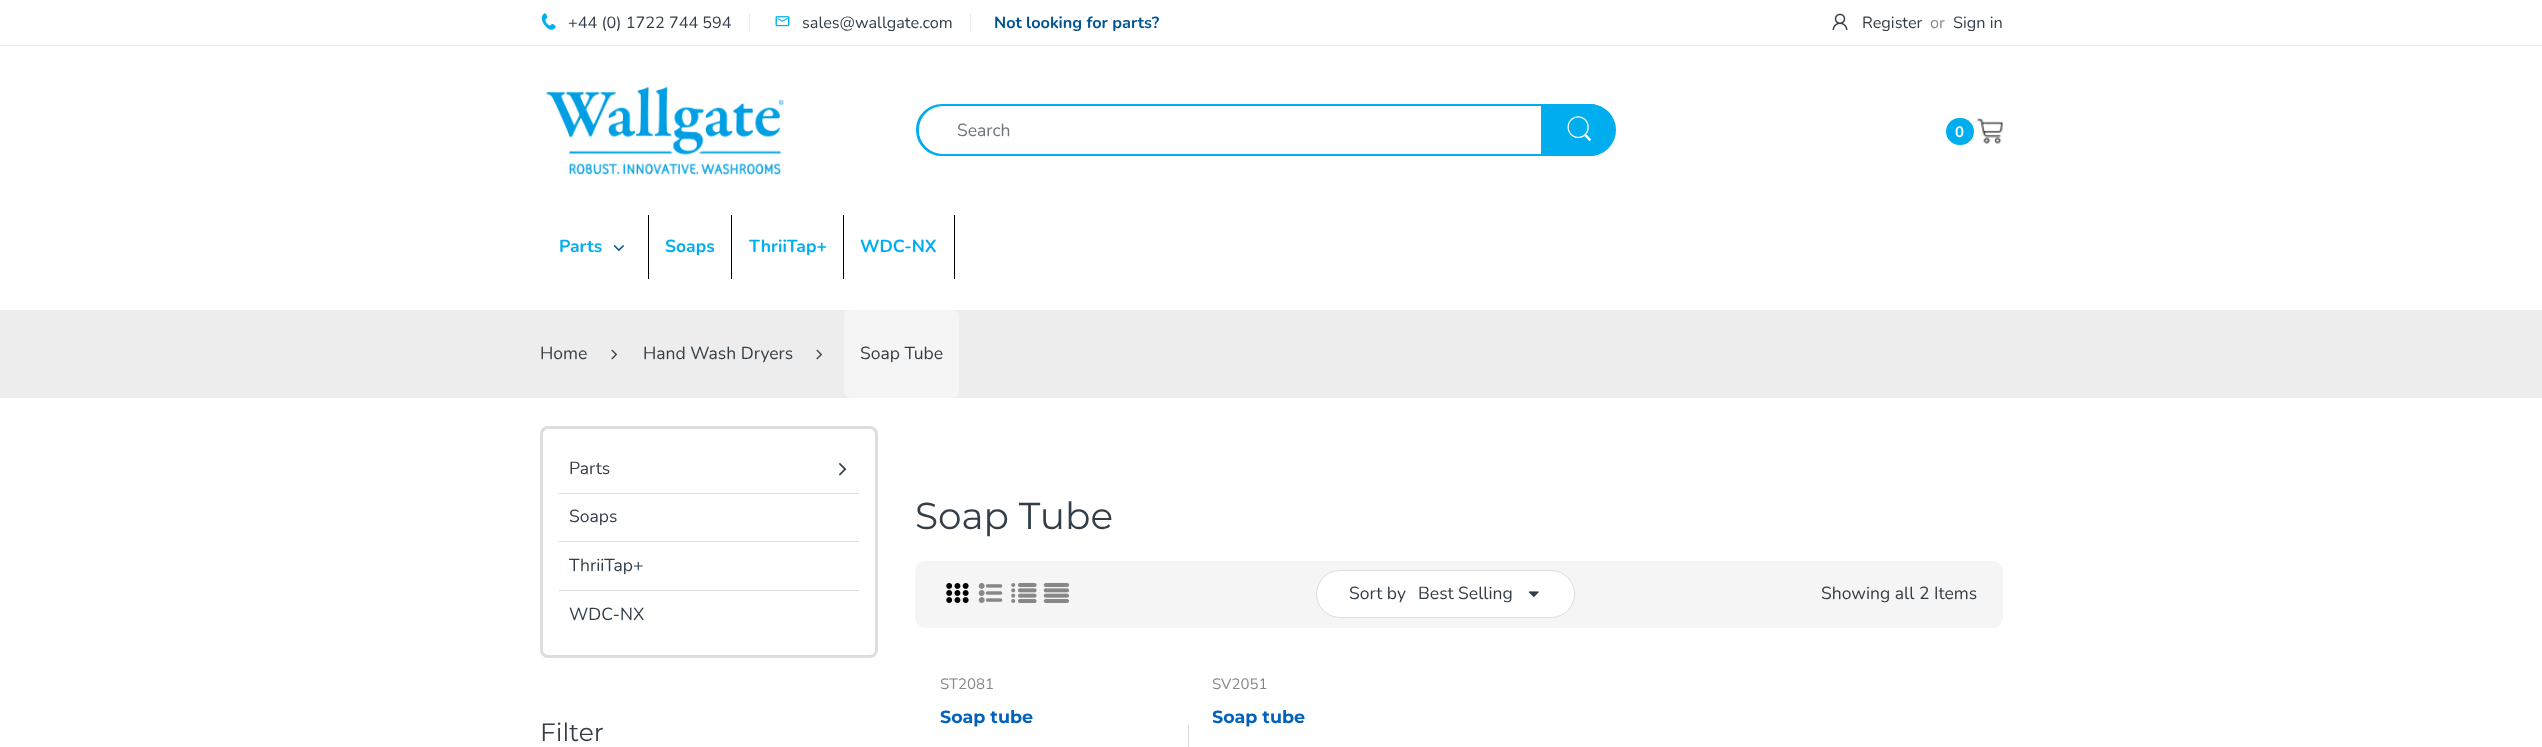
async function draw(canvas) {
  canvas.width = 2542
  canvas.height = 747
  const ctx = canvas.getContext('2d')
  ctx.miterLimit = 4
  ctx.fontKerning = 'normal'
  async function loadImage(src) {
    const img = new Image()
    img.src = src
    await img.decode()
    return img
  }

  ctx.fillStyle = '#fff'
  ctx.fillRect(0, 0, 2542, 747)
  ctx.fillStyle = '#ebeced'
  ctx.fillRect(0, 45, 2542, 1)
  ctx.drawImage(await loadImage('image0.png'), 541, 13, 15, 17)
  ctx.font = '16.25px Nunito'
  ctx.fillStyle = '#333e48'
  ctx.fillText('+44 (0) 1722 744 594', 568, 28)
  ctx.fillStyle = '#ebeced'
  ctx.fillRect(749, 14, 1, 19)
  ctx.drawImage(await loadImage('image1.png'), 775, 16, 15, 11)
  ctx.fillStyle = '#333e48'
  ctx.fillText('sales@wallgate.com', 802, 28)
  ctx.fillStyle = '#ebeced'
  ctx.fillRect(970, 14, 1, 19)
  ctx.font = 'bold 16.25px Nunito'
  ctx.fillStyle = '#005592'
  ctx.fillText('Not looking for parts?', 994, 28)
  ctx.drawImage(await loadImage('image2.png'), 1832, 13, 16, 17)
  ctx.font = '16.25px Nunito'
  ctx.fillStyle = '#333e48'
  ctx.fillText('Register', 1862, 28)
  ctx.fillStyle = '#858b91'
  ctx.fillText('or', 1930, 28)
  ctx.fillStyle = '#333e48'
  ctx.fillText('Sign in', 1953, 28)
  ctx.drawImage(await loadImage('image3.png'), 546, 87, 238, 88)
  ctx.beginPath()
  ctx.roundRect(917.5, 105.5, 696, 49, 24.5)
  ctx.strokeStyle = '#00aeef'
  ctx.lineWidth = 3
  ctx.stroke()
  ctx.fillStyle = '#fff'
  ctx.beginPath()
  ctx.roundRect(919, 106, 694, 48, 24)
  ctx.fill()
  ctx.font = '17.5px Nunito'
  ctx.fillStyle = '#6c757d'
  ctx.fillText('Search', 957, 136)
  ctx.fillStyle = '#00aeef'
  ctx.beginPath()
  ctx.roundRect(1541, 104, 75, 52, [0, 26, 26, 0])
  ctx.fill()
  ctx.drawImage(await loadImage('image4.png'), 1567, 116, 25, 26)
  ctx.beginPath()
  ctx.roundRect(1946, 118, 28, 27, 13.5)
  ctx.fill()
  ctx.font = 'bold 15px Nunito'
  ctx.fillStyle = '#fff'
  ctx.fillText('0', 1955, 137)
  ctx.drawImage(await loadImage('image5.png'), 1977, 118, 26, 26)
  ctx.fillStyle = '#000'
  ctx.fillRect(648, 215, 1, 64)
  ctx.font = 'bold 17.5px Nunito'
  ctx.fillStyle = '#00aeef'
  ctx.fillText('Parts', 559, 252)
  ctx.drawImage(await loadImage('image6.png'), 613, 245, 11, 7)
  ctx.fillStyle = '#000'
  ctx.fillRect(731, 215, 1, 64)
  ctx.fillStyle = '#00aeef'
  ctx.fillText('Soaps', 665, 252)
  ctx.fillStyle = '#000'
  ctx.fillRect(843, 215, 1, 64)
  ctx.fillStyle = '#00aeef'
  ctx.fillText('ThriiTap+', 749, 252)
  ctx.fillStyle = '#000'
  ctx.fillRect(954, 215, 1, 64)
  ctx.fillStyle = '#00aeef'
  ctx.fillText('WDC-NX', 860, 252)
  ctx.fillStyle = '#ededed'
  ctx.fillRect(0, 310, 2542, 88)
  ctx.font = '17.5px Nunito'
  ctx.fillStyle = '#333e48'
  ctx.fillText('Home', 540, 359)
  ctx.drawImage(await loadImage('image7.png'), 611, 349, 6, 11)
  ctx.fillText('Hand Wash Dryers', 643, 359)
  ctx.drawImage(await loadImage('image7.png'), 816, 349, 6, 11)
  ctx.fillStyle = '#f5f5f5'
  ctx.beginPath()
  ctx.roundRect(844, 310, 115, 88, 6)
  ctx.fill()
  ctx.fillStyle = '#333e48'
  ctx.fillText('Soap Tube', 860, 359)
  ctx.beginPath()
  ctx.roundRect(541.5, 427.5, 335, 229, 6.5)
  ctx.strokeStyle = '#ddd'
  ctx.stroke()
  ctx.fillStyle = '#ddd'
  ctx.fillRect(559, 493, 300, 1)
  ctx.fillStyle = '#333e48'
  ctx.fillText('Parts', 569, 474)
  ctx.drawImage(await loadImage('image8.png'), 839, 463, 8, 13)
  ctx.fillStyle = '#ddd'
  ctx.fillRect(559, 541, 300, 1)
  ctx.fillStyle = '#333e48'
  ctx.fillText('Soaps', 569, 522)
  ctx.fillStyle = '#ddd'
  ctx.fillRect(559, 590, 300, 1)
  ctx.fillStyle = '#333e48'
  ctx.fillText('ThriiTap+', 569, 571)
  ctx.fillText('WDC-NX', 569, 620)
  ctx.font = '25px Montserrat'
  ctx.fillText('Filter', 540, 741)
  ctx.font = '37.5px Montserrat'
  ctx.fillText('Soap Tube', 915, 529)
  ctx.fillStyle = '#f5f5f5'
  ctx.beginPath()
  ctx.roundRect(915, 561, 1088, 67, 11)
  ctx.fill()
  ctx.drawImage(await loadImage('image9.png'), 946, 583, 23, 20)
  ctx.drawImage(await loadImage('image10.png'), 978, 583, 25, 20)
  ctx.drawImage(await loadImage('image11.png'), 1011, 583, 26, 20)
  ctx.drawImage(await loadImage('image12.png'), 1043, 583, 27, 20)
  ctx.fillStyle = '#fff'
  ctx.beginPath()
  ctx.roundRect(1316.5, 570.5, 258, 47, 23.5)
  ctx.fill()
  ctx.lineWidth = 1
  ctx.stroke()
  ctx.font = '17.5px Nunito'
  ctx.fillStyle = '#333e48'
  ctx.fillText('Sort by', 1349, 599)
  ctx.fillText('Best Selling', 1418, 599)
  ctx.drawImage(await loadImage('image13.png'), 1528, 591, 11, 6)
  ctx.fillText('Showing all 2 Items', 1821, 599)
  ctx.font = '15px Nunito'
  ctx.fillStyle = '#878787'
  ctx.fillText('ST2081', 940, 689)
  ctx.font = 'bold 17.5px Montserrat'
  ctx.fillStyle = '#0062bd'
  ctx.fillText('Soap tube', 940, 723)
  ctx.font = '15px Nunito'
  ctx.fillStyle = '#878787'
  ctx.fillText('SV2051', 1212, 689)
  ctx.save()
  ctx.beginPath()
  ctx.rect(1213, 705, 221, 25)
  ctx.clip()
  ctx.font = 'bold 17.5px Montserrat'
  ctx.fillStyle = '#0062bd'
  ctx.fillText('Soap tube', 1212, 723)
  ctx.restore()
  ctx.fillStyle = '#ddd'
  ctx.fillRect(1188, 725, 1, 22)
}

draw(document.querySelector('canvas'))
